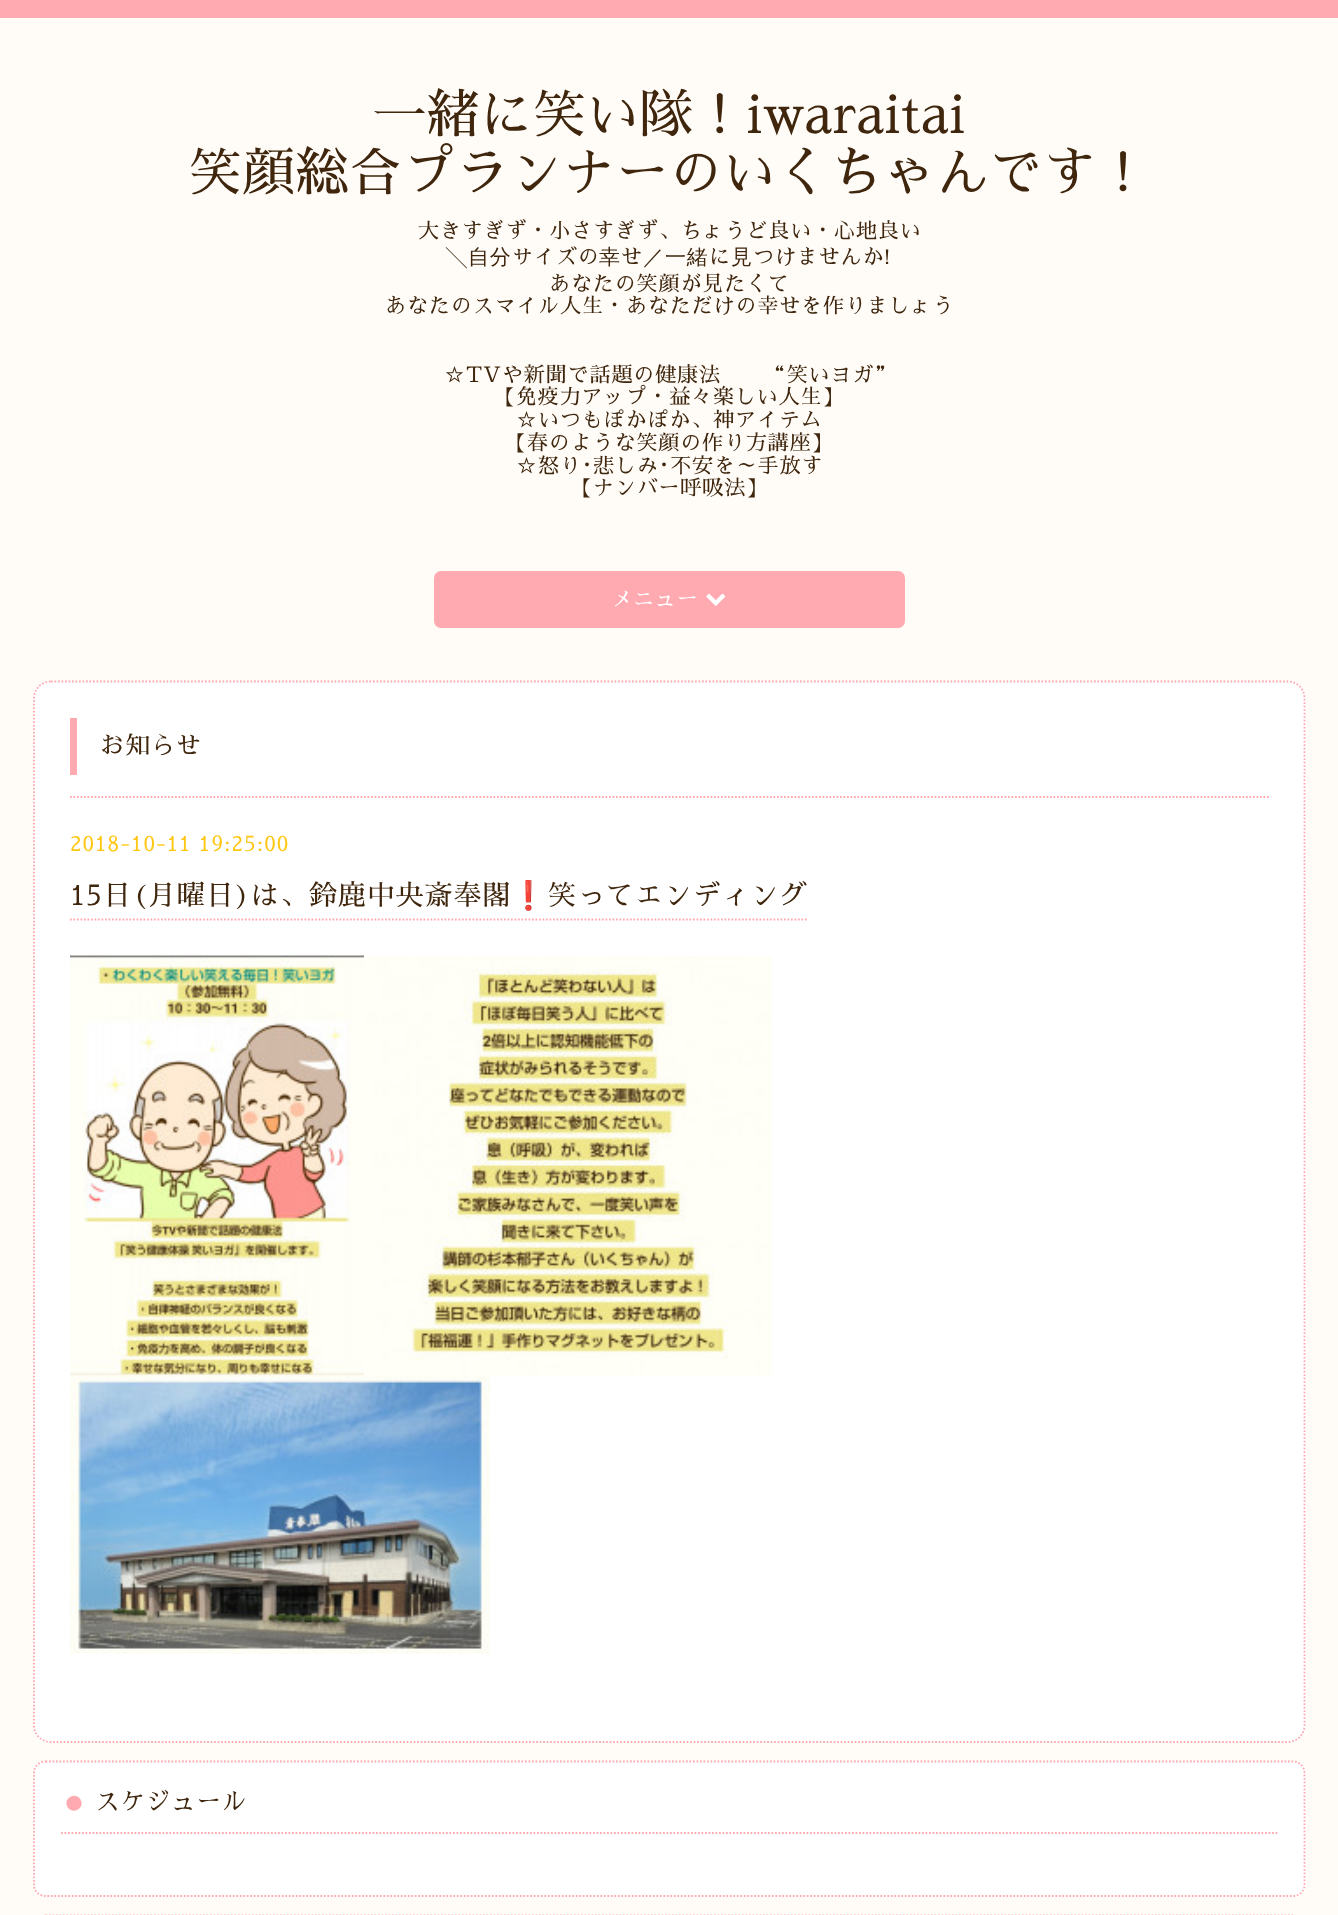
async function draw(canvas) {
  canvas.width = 1338
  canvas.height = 1915
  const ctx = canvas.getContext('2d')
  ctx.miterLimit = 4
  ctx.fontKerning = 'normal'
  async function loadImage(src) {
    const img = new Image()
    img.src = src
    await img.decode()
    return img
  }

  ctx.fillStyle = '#fffcf8'
  ctx.fillRect(0, 0, 1338, 1915)
  ctx.fillStyle = '#ffa9b1'
  ctx.fillRect(0, 0, 1338, 18)
  ctx.letterSpacing = '0.9px'
  ctx.font = '52.5px Sawarabi Mincho'
  ctx.fillStyle = '#3f260d'
  ctx.fillText('一緒に笑い隊！iwaraitai', 373, 133)
  ctx.fillText('笑顔総合プランナーのいくちゃんです！', 189, 191)
  ctx.font = '21px Sawarabi Mincho'
  ctx.fillText('大きすぎず・小さすぎず、ちょうど良い・心地良い', 418, 238)
  ctx.font = '500 21px WenQuanYi Zen Hei'
  ctx.fillText('╲自分', 446, 264)
  ctx.font = '21px Sawarabi Mincho'
  ctx.fillText('サイズの', 512, 264)
  ctx.font = '500 21px WenQuanYi Zen Hei'
  ctx.fillText('幸', 599, 264)
  ctx.font = '21px Sawarabi Mincho'
  ctx.fillText('せ', 621, 264)
  ctx.font = '500 21px WenQuanYi Zen Hei'
  ctx.fillText('／一緒', 643, 264)
  ctx.font = '21px Sawarabi Mincho'
  ctx.fillText('に', 709, 264)
  ctx.font = '500 21px WenQuanYi Zen Hei'
  ctx.fillText('見', 731, 264)
  ctx.font = '21px Sawarabi Mincho'
  ctx.fillText('つけませんか', 753, 264)
  ctx.font = '500 21px WenQuanYi Zen Hei'
  ctx.fillText('!', 884, 264)
  ctx.font = '21px Sawarabi Mincho'
  ctx.fillText('あなたの笑顔が見たくて', 549, 291)
  ctx.fillText('あなたのスマイル人生・あなただけの幸せを作りましょう', 385, 313)
  ctx.fillText('☆TVや新聞で話題の健康法　　“笑いヨガ”', 444, 382)
  ctx.fillText('【免疫力アップ・益々楽しい人生】', 494, 404)
  ctx.fillText('☆いつもぽかぽか、神アイテム', 516, 427)
  ctx.fillText('【春のような笑顔の作り方講座】', 505, 450)
  ctx.fillText('☆怒り･悲しみ･不安を～手放す', 516, 473)
  ctx.fillText('【ナンバー呼吸法】', 571, 495)
  ctx.fillStyle = '#ffa9b1'
  ctx.beginPath()
  ctx.roundRect(434, 571, 471, 57, 7)
  ctx.fill()
  ctx.fillStyle = '#fff'
  ctx.fillText('メニュー', 611, 606)
  ctx.drawImage(await loadImage('image0.png'), 706, 593, 20, 13)
  ctx.beginPath()
  ctx.roundRect(33, 681, 1273, 1062, 18)
  ctx.fill()
  ctx.beginPath()
  ctx.moveTo(51, 681.5)
  ctx.lineTo(1288, 681.5)
  ctx.bezierCurveTo(1297, 681.5, 1304.5, 689, 1304.5, 698)
  ctx.lineTo(1304.5, 1725.5)
  ctx.bezierCurveTo(1304.5, 1734.5, 1297, 1742, 1288, 1742)
  ctx.lineTo(51, 1742)
  ctx.bezierCurveTo(41.5, 1742, 34, 1734.5, 34, 1725.5)
  ctx.lineTo(34, 698)
  ctx.bezierCurveTo(34, 689, 41.5, 681.5, 51, 681.5)
  ctx.closePath()
  ctx.strokeStyle = '#ffa9b1'
  ctx.lineWidth = 1.8
  ctx.setLineDash([1.75, 1.75])
  ctx.stroke()
  ctx.fillStyle = '#ffa9b1'
  ctx.fillRect(70, 718, 7, 57)
  ctx.font = '24.5px Sawarabi Mincho'
  ctx.fillStyle = '#3f260d'
  ctx.fillText('お知らせ', 100, 754)
  ctx.beginPath()
  ctx.moveTo(70, 797)
  ctx.lineTo(1269, 797)
  ctx.stroke()
  ctx.font = '21px Sawarabi Mincho'
  ctx.fillStyle = '#ffc612'
  ctx.fillText('2018-10-11 19:25:00', 70, 851)
  ctx.font = '28px Sawarabi Mincho'
  ctx.fillStyle = '#3f260d'
  ctx.fillText('15日(月曜日)は、鈴鹿中央斎奉閣', 70, 905)
  ctx.beginPath()
  ctx.moveTo(70, 919.5)
  ctx.lineTo(807, 919.5)
  ctx.stroke()
  ctx.font = '28px Noto Color Emoji'
  ctx.fillText('❗️', 511, 905)
  ctx.font = '28px Sawarabi Mincho'
  ctx.fillText('笑ってエンディング', 548, 905)
  ctx.drawImage(await loadImage('image1.png'), 70, 955, 294, 421)
  ctx.drawImage(await loadImage('image2.png'), 364, 955, 408, 421)
  ctx.drawImage(await loadImage('image3.png'), 70, 1375, 420, 279)
  ctx.fillStyle = '#fff'
  ctx.beginPath()
  ctx.roundRect(33, 1761, 1273, 136, 12)
  ctx.fill()
  ctx.beginPath()
  ctx.moveTo(45.5, 1761.5)
  ctx.lineTo(1293, 1761.5)
  ctx.bezierCurveTo(1299.5, 1761.5, 1304.5, 1766.5, 1304.5, 1773)
  ctx.lineTo(1304.5, 1885)
  ctx.bezierCurveTo(1304.5, 1891, 1299.5, 1896, 1293, 1896)
  ctx.lineTo(45.5, 1896)
  ctx.bezierCurveTo(39, 1896, 34, 1891, 34, 1885)
  ctx.lineTo(34, 1773)
  ctx.bezierCurveTo(34, 1766.5, 39, 1761.5, 45.5, 1761.5)
  ctx.closePath()
  ctx.stroke()
  ctx.beginPath()
  ctx.moveTo(61, 1833)
  ctx.lineTo(1277.5, 1833)
  ctx.stroke()
  ctx.fillStyle = '#ffa9b1'
  ctx.beginPath()
  ctx.moveTo(80.5, 1799.5)
  ctx.bezierCurveTo(85.5, 1808, 72.5, 1815.5, 67.5, 1807)
  ctx.bezierCurveTo(62.5, 1798.5, 75.5, 1791, 80.5, 1799.5)
  ctx.closePath()
  ctx.fill()
  ctx.font = '24.5px Sawarabi Mincho'
  ctx.fillStyle = '#3f260d'
  ctx.fillText('スケジュール', 95, 1810)
  ctx.beginPath()
  ctx.moveTo(45.5, 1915.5)
  ctx.lineTo(1293, 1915.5)
  ctx.bezierCurveTo(1299.5, 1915.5, 1304.5, 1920.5, 1304.5, 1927)
  ctx.lineTo(1304.5, 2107)
  ctx.bezierCurveTo(1304.5, 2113.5, 1299.5, 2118.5, 1293, 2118.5)
  ctx.lineTo(45.5, 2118.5)
  ctx.bezierCurveTo(39, 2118.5, 34, 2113.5, 34, 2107)
  ctx.lineTo(34, 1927)
  ctx.bezierCurveTo(34, 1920.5, 39, 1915.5, 45.5, 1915.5)
  ctx.closePath()
  ctx.stroke()
}

draw(document.querySelector('canvas'))
